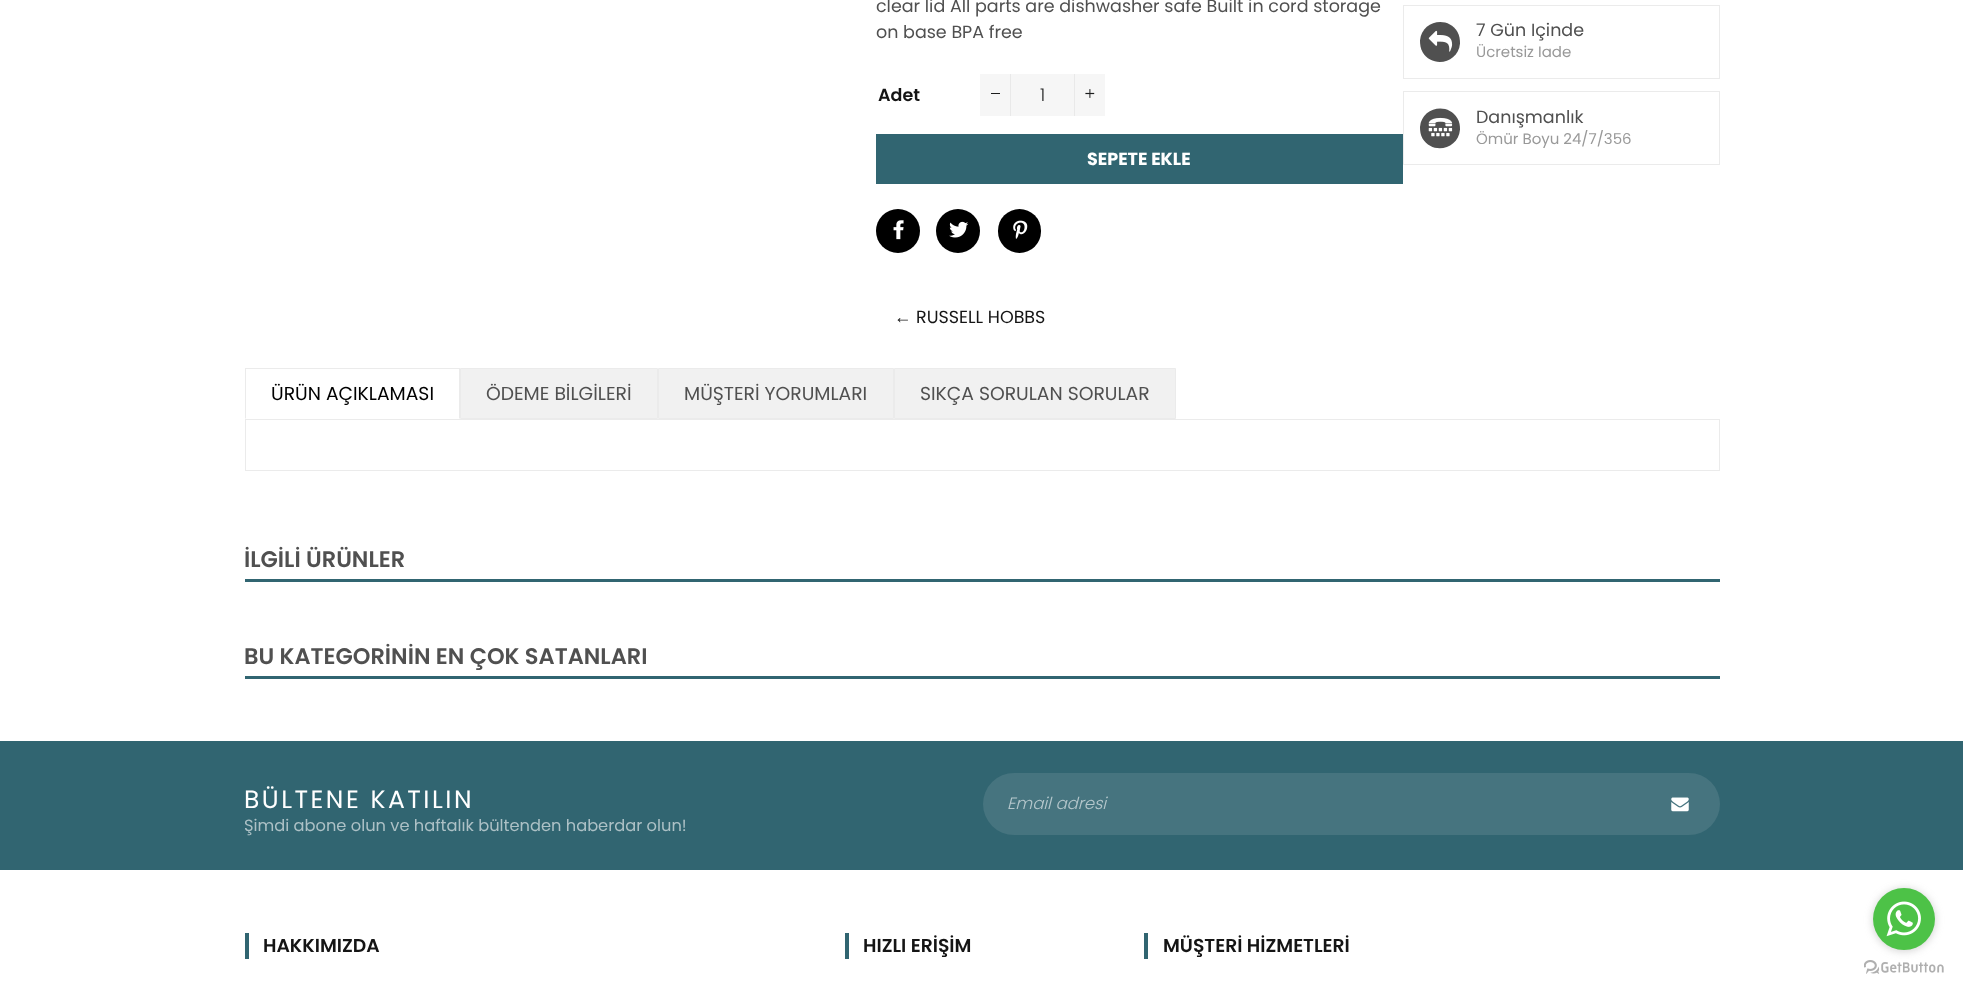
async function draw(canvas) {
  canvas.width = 1963
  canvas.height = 991
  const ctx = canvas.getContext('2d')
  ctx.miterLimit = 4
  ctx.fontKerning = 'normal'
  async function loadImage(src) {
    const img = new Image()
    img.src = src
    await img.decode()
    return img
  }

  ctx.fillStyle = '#fff'
  ctx.fillRect(0, 0, 1963, 991)
  ctx.font = '17.5px Poppins'
  ctx.fillStyle = '#505050'
  ctx.fillText('clear lid All parts are dishwasher safe Built in cord storage', 876, 12)
  ctx.fillText('on base BPA free', 876, 38)
  ctx.font = '600 17.5px Poppins'
  ctx.fillStyle = '#151515'
  ctx.fillText('Adet', 878, 101)
  ctx.fillStyle = '#f6f6f6'
  ctx.fillRect(980, 74, 125, 42)
  ctx.fillStyle = '#e9e9e9'
  ctx.fillRect(1010, 74, 1, 42)
  ctx.fillStyle = '#1c1d1d'
  ctx.fillRect(991, 93, 9, 1)
  ctx.font = '300 17.5px Poppins'
  ctx.fillText('1', 1040, 101)
  ctx.fillStyle = '#e9e9e9'
  ctx.fillRect(1074, 74, 1, 42)
  ctx.drawImage(await loadImage('image0.png'), 1085, 89, 10, 9)
  ctx.fillStyle = '#316571'
  ctx.fillRect(876, 134, 527, 50)
  ctx.font = 'bold 17.5px Poppins'
  ctx.fillStyle = '#fff'
  ctx.fillText('SEPETE EKLE', 1087, 165)
  ctx.fillStyle = '#000'
  ctx.beginPath()
  ctx.arc(898, 231, 22, 0, 2 * Math.PI)
  ctx.fill()
  ctx.drawImage(await loadImage('image1.png'), 893, 220, 11, 20)
  ctx.beginPath()
  ctx.arc(958, 231, 22, 0, 2 * Math.PI)
  ctx.fill()
  ctx.drawImage(await loadImage('image2.png'), 949, 221, 20, 17)
  ctx.beginPath()
  ctx.roundRect(998, 209, 43, 44, 21.5)
  ctx.fill()
  ctx.drawImage(await loadImage('image3.png'), 1013, 220, 15, 19)
  ctx.strokeStyle = '#ebebeb'
  ctx.strokeRect(1403.5, 5.5, 316, 73)
  ctx.fillStyle = '#505050'
  ctx.beginPath()
  ctx.moveTo(1457.5, 32)
  ctx.bezierCurveTo(1459.5, 35.5, 1460, 39.5, 1460, 43.5)
  ctx.bezierCurveTo(1458.5, 63, 1432.5, 69, 1422.5, 52)
  ctx.bezierCurveTo(1420.5, 48.5, 1420, 44.5, 1420, 40.5)
  ctx.bezierCurveTo(1421.5, 21, 1447.5, 15, 1457.5, 32)
  ctx.closePath()
  ctx.fill()
  ctx.drawImage(await loadImage('image4.png'), 1428, 30, 25, 22)
  ctx.font = '17.5px Poppins'
  ctx.fillText('7 Gün Içinde', 1476, 36)
  ctx.font = '15px Poppins'
  ctx.fillStyle = '#999'
  ctx.fillText('Ücretsiz Iade', 1476, 57)
  ctx.strokeRect(1403.5, 91.5, 316, 73)
  ctx.fillStyle = '#505050'
  ctx.beginPath()
  ctx.moveTo(1457.5, 118.5)
  ctx.bezierCurveTo(1459.5, 121.5, 1460, 125.5, 1460, 129.5)
  ctx.bezierCurveTo(1458.5, 149.5, 1432.5, 155, 1422.5, 138.5)
  ctx.bezierCurveTo(1420.5, 135, 1420, 131, 1420, 127)
  ctx.bezierCurveTo(1421.5, 107.5, 1447.5, 101.5, 1457.5, 118.5)
  ctx.closePath()
  ctx.fill()
  ctx.drawImage(await loadImage('image5.png'), 1428, 117, 25, 20)
  ctx.font = '17.5px Poppins'
  ctx.fillText('Danışmanlık', 1476, 123)
  ctx.font = '15px Poppins'
  ctx.fillStyle = '#999'
  ctx.fillText('Ömür Boyu 24/7/356', 1476, 144)
  ctx.font = '17.5px Liberation Serif'
  ctx.fillStyle = '#151515'
  ctx.fillText('←', 894, 323)
  ctx.font = '17.5px Poppins'
  ctx.fillText('RUSSELL HOBBS', 916, 323)
  ctx.fillStyle = '#ebebeb'
  ctx.fillRect(245, 368, 215, 1)
  ctx.beginPath()
  ctx.moveTo(460, 368)
  ctx.lineTo(460, 419)
  ctx.lineTo(459, 418)
  ctx.lineTo(459, 369)
  ctx.closePath()
  ctx.fill()
  ctx.beginPath()
  ctx.moveTo(245, 419)
  ctx.lineTo(245, 368)
  ctx.lineTo(246, 369)
  ctx.lineTo(246, 418)
  ctx.closePath()
  ctx.fill()
  ctx.font = '18.75px Poppins'
  ctx.fillStyle = '#000'
  ctx.fillText('ÜRÜN AÇIKLAMASI', 271, 400)
  ctx.fillStyle = '#f1f1f1'
  ctx.beginPath()
  ctx.rect(460.5, 368.5, 197, 50)
  ctx.fill()
  ctx.stroke()
  ctx.fillStyle = '#505050'
  ctx.fillText('ÖDEME BİLGİLERİ', 486, 400)
  ctx.fillStyle = '#f1f1f1'
  ctx.beginPath()
  ctx.rect(658.5, 368.5, 235, 50)
  ctx.fill()
  ctx.stroke()
  ctx.fillStyle = '#505050'
  ctx.fillText('MÜŞTERİ YORUMLARI', 684, 400)
  ctx.fillStyle = '#f1f1f1'
  ctx.beginPath()
  ctx.rect(894.5, 368.5, 281, 50)
  ctx.fill()
  ctx.stroke()
  ctx.fillStyle = '#505050'
  ctx.fillText('SIKÇA SORULAN SORULAR', 920, 400)
  ctx.strokeRect(245.5, 419.5, 1474, 51)
  ctx.fillStyle = '#316571'
  ctx.fillRect(245, 579, 1475, 3)
  ctx.font = '600 22.5px Poppins'
  ctx.fillStyle = '#505050'
  ctx.fillText('İLGİLİ ÜRÜNLER', 244, 567)
  ctx.fillStyle = '#316571'
  ctx.fillRect(245, 676, 1475, 3)
  ctx.fillStyle = '#505050'
  ctx.fillText('BU KATEGORİNİN EN ÇOK SATANLARI', 244, 664)
  ctx.fillStyle = '#316571'
  ctx.fillRect(0, 741, 1963, 129)
  ctx.letterSpacing = '2.5px'
  ctx.font = '25px Poppins'
  ctx.fillStyle = '#fff'
  ctx.fillText('BÜLTENE KATILIN', 244, 808)
  ctx.letterSpacing = '0px'
  ctx.font = '16.25px Poppins'
  ctx.fillStyle = '#adc1c6'
  ctx.fillText('Şimdi abone olun ve haftalık bültenden haberdar olun!', 244, 831)
  ctx.fillStyle = '#46747f'
  ctx.beginPath()
  ctx.roundRect(983, 773, 737, 62, 31)
  ctx.fill()
  ctx.font = 'italic 300 16.5px Poppins'
  ctx.fillStyle = '#b5c7cc'
  ctx.fillText('Email adresi', 1007, 809)
  ctx.drawImage(await loadImage('image6.png'), 1671, 797, 18, 15)
  ctx.fillStyle = '#316571'
  ctx.fillRect(245, 933, 4, 26)
  ctx.font = '600 18.75px Poppins'
  ctx.fillStyle = '#151515'
  ctx.fillText('HAKKIMIZDA', 263, 952)
  ctx.fillStyle = '#316571'
  ctx.fillRect(845, 933, 4, 26)
  ctx.fillStyle = '#151515'
  ctx.fillText('HIZLI ERİŞİM', 863, 952)
  ctx.fillStyle = '#316571'
  ctx.fillRect(1144, 933, 4, 26)
  ctx.fillStyle = '#151515'
  ctx.fillText('MÜŞTERİ HİZMETLERİ', 1163, 952)
  ctx.drawImage(await loadImage('image8.png'), 1864, 960, 80, 14)
  ctx.fillStyle = '#88888866'
  ctx.filter = 'blur(4.5px)'
  ctx.beginPath()
  ctx.roundRect(1873, 889, 62, 62, 31)
  ctx.fill()
  ctx.filter = 'none'
  ctx.fillStyle = '#4dc247'
  ctx.beginPath()
  ctx.arc(1904, 919, 31, 0, 2 * Math.PI)
  ctx.fill()
  ctx.drawImage(await loadImage('image7.png'), 1886, 901, 35, 36)
}

draw(document.querySelector('canvas'))
